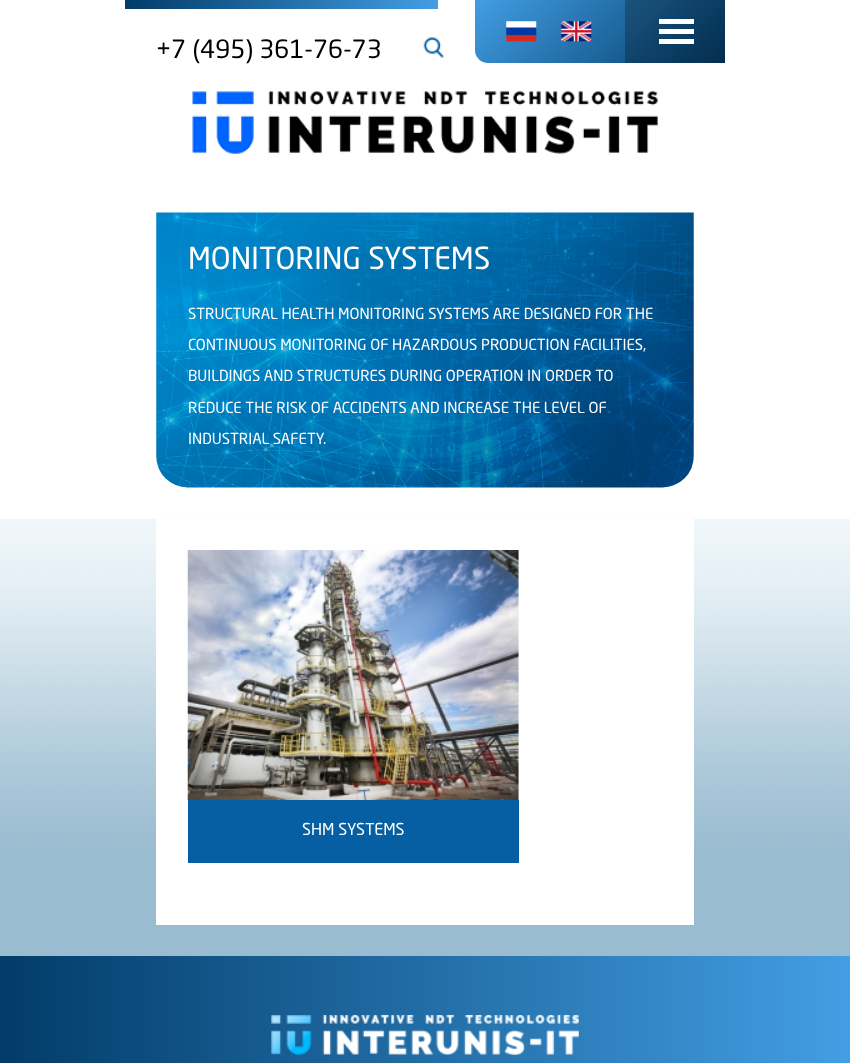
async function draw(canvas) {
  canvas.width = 850
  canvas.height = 1063
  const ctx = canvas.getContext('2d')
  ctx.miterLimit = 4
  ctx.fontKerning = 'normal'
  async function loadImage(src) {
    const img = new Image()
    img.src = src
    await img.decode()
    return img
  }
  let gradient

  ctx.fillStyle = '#fff'
  ctx.fillRect(0, 0, 850, 1063)
  gradient = ctx.createLinearGradient(438, 4.4, 125, 4.4)
  gradient.addColorStop(0, '#439ee3')
  gradient.addColorStop(1, '#023c69')
  ctx.fillStyle = gradient
  ctx.fillRect(125, 0, 313, 9)
  gradient = ctx.createLinearGradient(522, -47, 678, 109)
  gradient.addColorStop(0, '#439ee3')
  gradient.addColorStop(1, '#023c69')
  ctx.fillStyle = gradient
  ctx.beginPath()
  ctx.roundRect(475, 0, 250, 63, [0, 0, 0, 13])
  ctx.fill()
  gradient = ctx.createLinearGradient(522, -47, 678, 109)
  gradient.addColorStop(0, '#3277aa')
  gradient.addColorStop(1, '#022d4f')
  ctx.fillStyle = gradient
  ctx.fillRect(625, 0, 100, 63)
  ctx.drawImage(await loadImage('image0.png'), 506, 21, 31, 21)
  ctx.drawImage(await loadImage('image1.png'), 561, 21, 31, 21)
  ctx.fillStyle = '#fff'
  ctx.fillRect(659, 19, 35, 5)
  ctx.fillRect(659, 29, 35, 5)
  ctx.fillRect(659, 39, 35, 5)
  ctx.font = '25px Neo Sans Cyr'
  ctx.fillStyle = '#000'
  ctx.fillText('+7 (495) 361-76-73', 156, 58)
  ctx.drawImage(await loadImage('image2.png'), 423, 37, 21, 21)
  ctx.drawImage(await loadImage('image3.png'), 192, 91, 466, 63)
  ctx.drawImage(await loadImage('image4.png'), 156, 212, 538, 276)
  ctx.font = '30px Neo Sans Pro'
  ctx.fillStyle = '#fff'
  ctx.fillText('MONITORING SYSTEMS', 188, 269)
  ctx.font = '15px Neo Sans Pro'
  ctx.fillText('STRUCTURAL HEALTH MONITORING SYSTEMS ARE DESIGNED FOR THE', 188, 319)
  ctx.fillText('CONTINUOUS MONITORING OF HAZARDOUS PRODUCTION FACILITIES,', 188, 350)
  ctx.fillText('BUILDINGS AND STRUCTURES DURING OPERATION IN ORDER TO', 188, 381)
  ctx.fillText('REDUCE THE RISK OF ACCIDENTS AND INCREASE THE LEVEL OF', 188, 413)
  ctx.fillText('INDUSTRIAL SAFETY.', 188, 444)
  ctx.drawImage(await loadImage('image5.png'), 0, 518, 850, 438)
  ctx.fillRect(156, 519, 538, 406)
  ctx.drawImage(await loadImage('image6.png'), 187, 550, 332, 250)
  ctx.fillStyle = '#065fa3'
  ctx.fillRect(188, 800, 331, 63)
  ctx.font = '16.25px Neo Sans Pro'
  ctx.fillStyle = '#fff'
  ctx.fillText('SHM SYSTEMS', 302, 835)
  gradient = ctx.createLinearGradient(0, 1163, 850, 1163)
  gradient.addColorStop(0, '#023c69')
  gradient.addColorStop(1, '#439ee3')
  ctx.fillStyle = gradient
  ctx.fillRect(0, 956, 850, 107)
  ctx.drawImage(await loadImage('image7.png'), 271, 1015, 308, 40)
}

draw(document.querySelector('canvas'))
